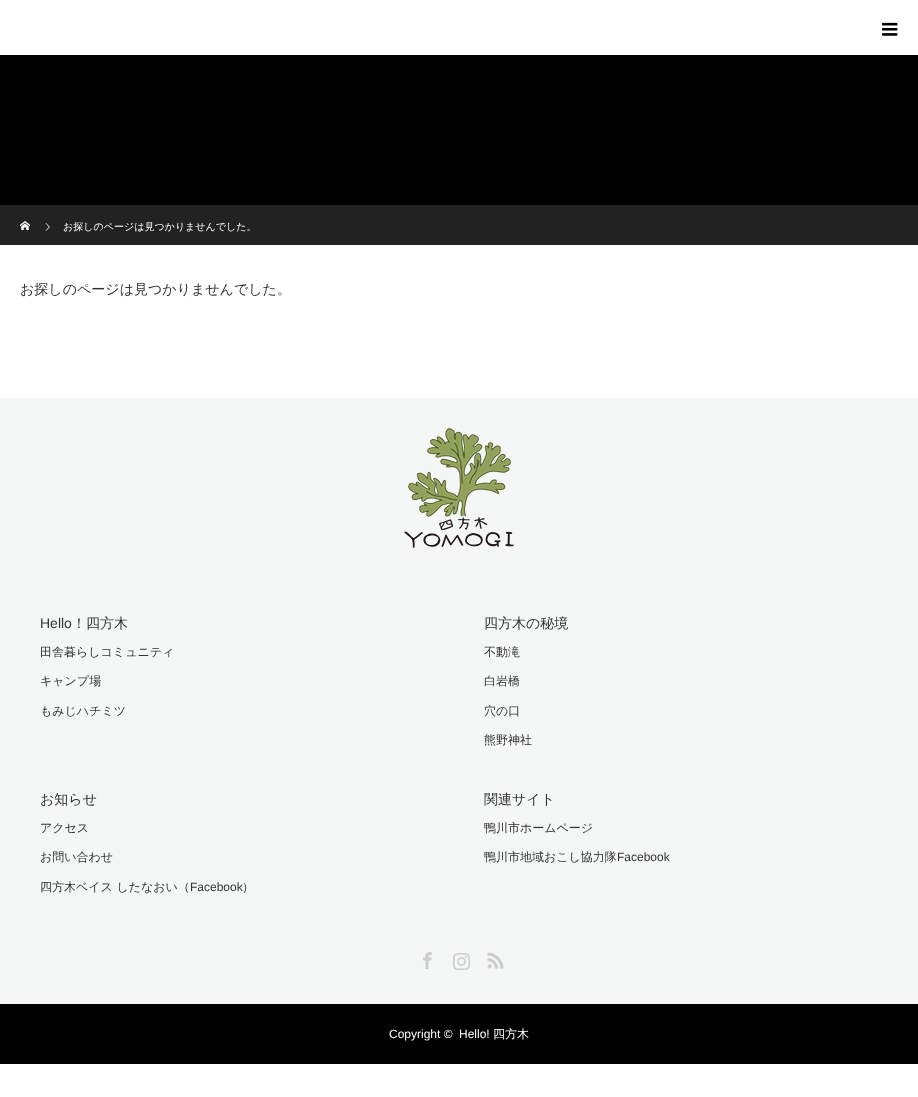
async function draw(canvas) {
  canvas.width = 918
  canvas.height = 1097
  const ctx = canvas.getContext('2d')
  ctx.miterLimit = 4
  ctx.fontKerning = 'normal'
  async function loadImage(src) {
    const img = new Image()
    img.src = src
    await img.decode()
    return img
  }

  ctx.fillStyle = '#fff'
  ctx.fillRect(0, 0, 918, 1097)
  ctx.drawImage(await loadImage('image0.png'), 882, 22, 16, 14)
  ctx.fillStyle = '#000'
  ctx.fillRect(0, 55, 918, 150)
  ctx.fillStyle = '#222'
  ctx.fillRect(0, 205, 918, 40)
  ctx.drawImage(await loadImage('image1.png'), 20, 221, 10, 9)
  ctx.drawImage(await loadImage('image2.png'), 45, 223, 5, 8)
  ctx.font = '500 10px WenQuanYi Zen Hei'
  ctx.fillStyle = '#fff'
  ctx.fillText('お探しのページは見つかりませんでした。', 63, 230)
  ctx.font = '500 14px WenQuanYi Zen Hei'
  ctx.fillStyle = '#333'
  ctx.fillText('お探しのページは見つかりませんでした。', 20, 294)
  ctx.fillStyle = '#f5f7f6'
  ctx.fillRect(0, 398, 918, 606)
  ctx.drawImage(await loadImage('image3.png'), 404, 428, 110, 120)
  ctx.font = '14px Liberation Sans'
  ctx.fillStyle = '#333'
  ctx.fillText('Hello', 40, 628)
  ctx.font = '500 14px WenQuanYi Zen Hei'
  ctx.fillText('！四方木', 72, 628)
  ctx.font = '500 12px WenQuanYi Zen Hei'
  ctx.fillText('田舎暮らしコミュニティ', 40, 656)
  ctx.fillText('キャンプ場', 40, 685)
  ctx.fillText('もみじハチミツ', 40, 715)
  ctx.font = '500 14px WenQuanYi Zen Hei'
  ctx.fillText('四方木の秘境', 484, 628)
  ctx.font = '500 12px WenQuanYi Zen Hei'
  ctx.fillText('不動滝', 484, 656)
  ctx.fillText('白岩橋', 484, 685)
  ctx.fillText('穴の口', 484, 715)
  ctx.fillText('熊野神社', 484, 744)
  ctx.font = '500 14px WenQuanYi Zen Hei'
  ctx.fillText('お知らせ', 40, 804)
  ctx.font = '500 12px WenQuanYi Zen Hei'
  ctx.fillText('アクセス', 40, 832)
  ctx.fillText('お問い合わせ', 40, 861)
  ctx.fillText('四方木ベイス したなおい（', 40, 891)
  ctx.font = '12px Liberation Sans'
  ctx.fillText('Facebook', 190, 891)
  ctx.font = '500 12px WenQuanYi Zen Hei'
  ctx.fillText('）', 242, 891)
  ctx.font = '500 14px WenQuanYi Zen Hei'
  ctx.fillText('関連サイト', 484, 804)
  ctx.font = '500 12px WenQuanYi Zen Hei'
  ctx.fillText('鴨川市ホームページ', 484, 832)
  ctx.fillText('鴨川市地域おこし協力隊', 484, 861)
  ctx.font = '12px Liberation Sans'
  ctx.fillText('Facebook', 617, 861)
  ctx.drawImage(await loadImage('image4.png'), 423, 952, 9, 17)
  ctx.drawImage(await loadImage('image5.png'), 453, 953, 17, 17)
  ctx.drawImage(await loadImage('image6.png'), 487, 952, 17, 17)
  ctx.fillStyle = '#000'
  ctx.fillRect(0, 1004, 918, 60)
  ctx.fillStyle = '#fff'
  ctx.fillText('Copyright ©', 389, 1038)
  ctx.fillText('Hello!', 459, 1038)
  ctx.font = '500 12px WenQuanYi Zen Hei'
  ctx.fillText('四方木', 493, 1038)
}

draw(document.querySelector('canvas'))
